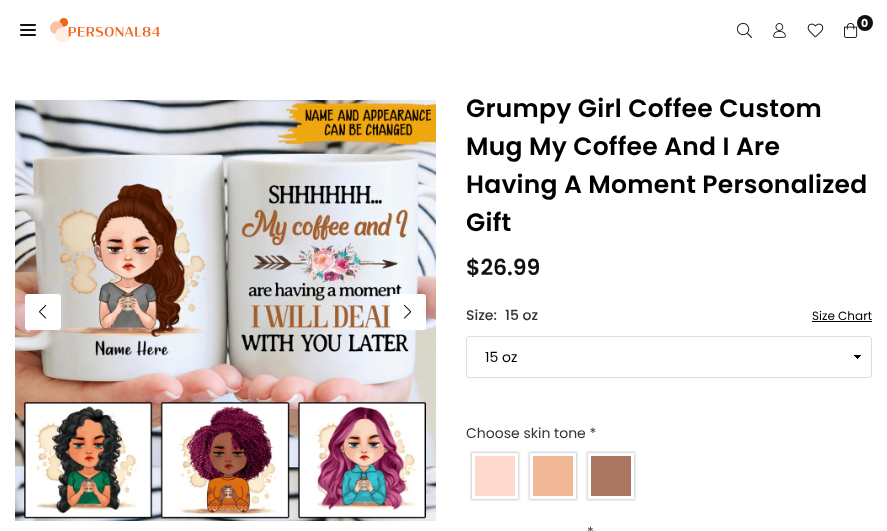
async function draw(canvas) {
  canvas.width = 887
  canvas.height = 531
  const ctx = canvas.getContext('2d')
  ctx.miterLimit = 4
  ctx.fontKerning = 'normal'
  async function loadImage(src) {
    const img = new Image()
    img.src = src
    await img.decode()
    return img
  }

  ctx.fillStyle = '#fff'
  ctx.fillRect(0, 0, 887, 531)
  ctx.drawImage(await loadImage('image0.png'), 50, 18, 110, 24)
  ctx.drawImage(await loadImage('image1.png'), 737, 22, 15, 16)
  ctx.drawImage(await loadImage('image2.png'), 773, 23, 13, 15)
  ctx.drawImage(await loadImage('image3.png'), 807, 23, 17, 15)
  ctx.drawImage(await loadImage('image4.png'), 844, 22, 14, 16)
  ctx.fillStyle = '#111'
  ctx.beginPath()
  ctx.arc(865, 23, 8, 0, 2 * Math.PI)
  ctx.fill()
  ctx.font = 'bold 11px Poppins'
  ctx.fillStyle = '#fff'
  ctx.fillText('0', 861, 27)
  ctx.drawImage(await loadImage('image5.png'), 20, 24, 16, 12)
  ctx.drawImage(await loadImage('image6.png'), 15, 100, 421, 421)
  ctx.beginPath()
  ctx.roundRect(25, 294, 36, 36, 3)
  ctx.fill()
  ctx.drawImage(await loadImage('image7.png'), 39, 305, 8, 14)
  ctx.beginPath()
  ctx.roundRect(390, 294, 36, 36, 3)
  ctx.fill()
  ctx.drawImage(await loadImage('image8.png'), 404, 305, 8, 14)
  ctx.letterSpacing = '0.25px'
  ctx.font = '600 25px Poppins'
  ctx.fillStyle = '#000'
  ctx.fillText('Grumpy Girl Coffee Custom', 466, 117)
  ctx.fillText('Mug My Coffee And I Are', 466, 155)
  ctx.fillText('Having A Moment Personalized', 466, 193)
  ctx.fillText('Gift', 466, 231)
  ctx.letterSpacing = '0px'
  ctx.font = '600 22px Poppins'
  ctx.fillStyle = '#111'
  ctx.fillText('$26.99', 466, 275)
  ctx.font = '500 14px Poppins'
  ctx.fillStyle = '#333'
  ctx.fillText('Size:', 466, 320)
  ctx.fillText('15 oz', 505, 320)
  ctx.font = '12px Poppins'
  ctx.fillStyle = '#000'
  ctx.fillText('Size Chart', 812, 320)
  ctx.fillRect(812, 321, 60, 1)
  ctx.drawImage(await loadImage('image9.png'), 854, 355, 7, 4)
  ctx.beginPath()
  ctx.roundRect(466.5, 336.5, 405, 41, 2.5)
  ctx.strokeStyle = '#ddd'
  ctx.stroke()
  ctx.font = '14px Poppins'
  ctx.fillText('15 oz', 485, 362)
  ctx.fillStyle = '#333'
  ctx.fillText('Choose skin tone *', 466, 438)
  ctx.save()
  ctx.beginPath()
  ctx.moveTo(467, 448)
  ctx.lineTo(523, 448)
  ctx.lineTo(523, 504)
  ctx.lineTo(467, 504)
  ctx.closePath()
  ctx.moveTo(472, 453)
  ctx.lineTo(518, 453)
  ctx.lineTo(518, 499)
  ctx.lineTo(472, 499)
  ctx.closePath()
  ctx.clip('evenodd')
  ctx.fillStyle = '#00000033'
  ctx.filter = 'blur(1px)'
  ctx.beginPath()
  ctx.rect(471, 452, 48, 48)
  ctx.fill()
  ctx.filter = 'none'
  ctx.restore()
  ctx.fillStyle = '#fed9ce'
  ctx.fillRect(475, 456, 40, 40)
  ctx.save()
  ctx.beginPath()
  ctx.moveTo(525, 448)
  ctx.lineTo(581, 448)
  ctx.lineTo(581, 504)
  ctx.lineTo(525, 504)
  ctx.closePath()
  ctx.moveTo(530, 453)
  ctx.lineTo(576, 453)
  ctx.lineTo(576, 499)
  ctx.lineTo(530, 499)
  ctx.closePath()
  ctx.clip('evenodd')
  ctx.fillStyle = '#00000033'
  ctx.filter = 'blur(1px)'
  ctx.beginPath()
  ctx.rect(529, 452, 48, 48)
  ctx.fill()
  ctx.filter = 'none'
  ctx.restore()
  ctx.fillStyle = '#f0b897'
  ctx.fillRect(533, 456, 40, 40)
  ctx.save()
  ctx.beginPath()
  ctx.moveTo(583, 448)
  ctx.lineTo(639, 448)
  ctx.lineTo(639, 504)
  ctx.lineTo(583, 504)
  ctx.closePath()
  ctx.moveTo(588, 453)
  ctx.lineTo(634, 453)
  ctx.lineTo(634, 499)
  ctx.lineTo(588, 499)
  ctx.closePath()
  ctx.clip('evenodd')
  ctx.fillStyle = '#00000033'
  ctx.filter = 'blur(1px)'
  ctx.beginPath()
  ctx.rect(587, 452, 48, 48)
  ctx.fill()
  ctx.filter = 'none'
  ctx.restore()
  ctx.fillStyle = '#a87661'
  ctx.fillRect(591, 456, 40, 40)
  ctx.fillStyle = '#333'
  ctx.fillText('*', 587, 537)
}

draw(document.querySelector('canvas'))
